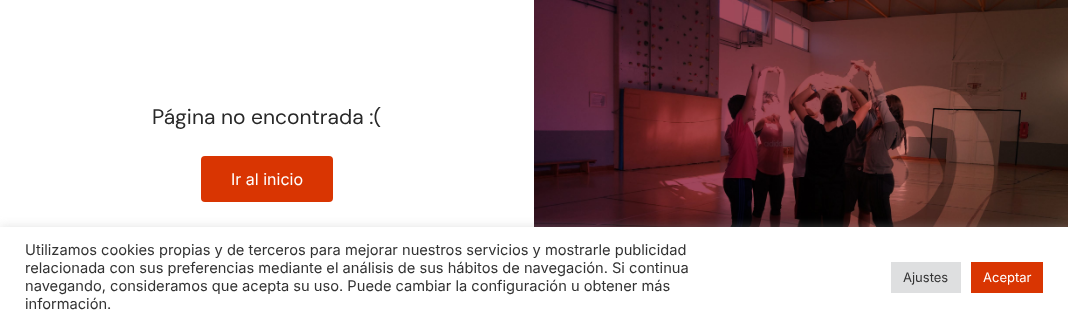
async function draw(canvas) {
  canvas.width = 1068
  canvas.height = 327
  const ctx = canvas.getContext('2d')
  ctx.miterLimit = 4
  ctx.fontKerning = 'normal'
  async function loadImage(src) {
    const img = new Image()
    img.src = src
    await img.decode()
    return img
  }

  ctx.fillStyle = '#fff'
  ctx.fillRect(0, 0, 1068, 327)
  ctx.font = '21px DM Sans'
  ctx.fillStyle = '#282828'
  ctx.fillText('Página no encontrada :(', 152, 124)
  ctx.fillStyle = '#d93502'
  ctx.beginPath()
  ctx.roundRect(201, 156, 132, 46, 4)
  ctx.fill()
  ctx.font = '16px Inter'
  ctx.fillStyle = '#fff'
  ctx.fillText('Ir al inicio', 231, 185)
  ctx.drawImage(await loadImage('image0.png'), 534, 0, 534, 227)
  ctx.fillStyle = '#acabab4d'
  ctx.filter = 'blur(5px)'
  ctx.beginPath()
  ctx.rect(0, 226, 1068, 100)
  ctx.fill()
  ctx.filter = 'none'
  ctx.fillStyle = '#fff'
  ctx.fillRect(0, 227, 1068, 100)
  ctx.font = '14.65px Inter'
  ctx.fillStyle = '#333'
  ctx.fillText('Utilizamos cookies propias y de terceros para mejorar nuestros servicios y mostrarle publicidad', 25, 255)
  ctx.fillText('relacionada con sus preferencias mediante el análisis de sus hábitos de navegación. Si continua', 25, 273)
  ctx.fillText('navegando, consideramos que acepta su uso. Puede cambiar la configuración u obtener más', 25, 291)
  ctx.fillText('información.', 25, 309)
  ctx.fillStyle = '#dedfe0'
  ctx.fillRect(891, 262, 70, 31)
  ctx.font = '13px Inter'
  ctx.fillStyle = '#333'
  ctx.fillText('Ajustes', 903, 282)
  ctx.fillStyle = '#d93502'
  ctx.fillRect(971, 262, 72, 31)
  ctx.fillStyle = '#fff'
  ctx.fillText('Aceptar', 983, 282)
}

draw(document.querySelector('canvas'))
